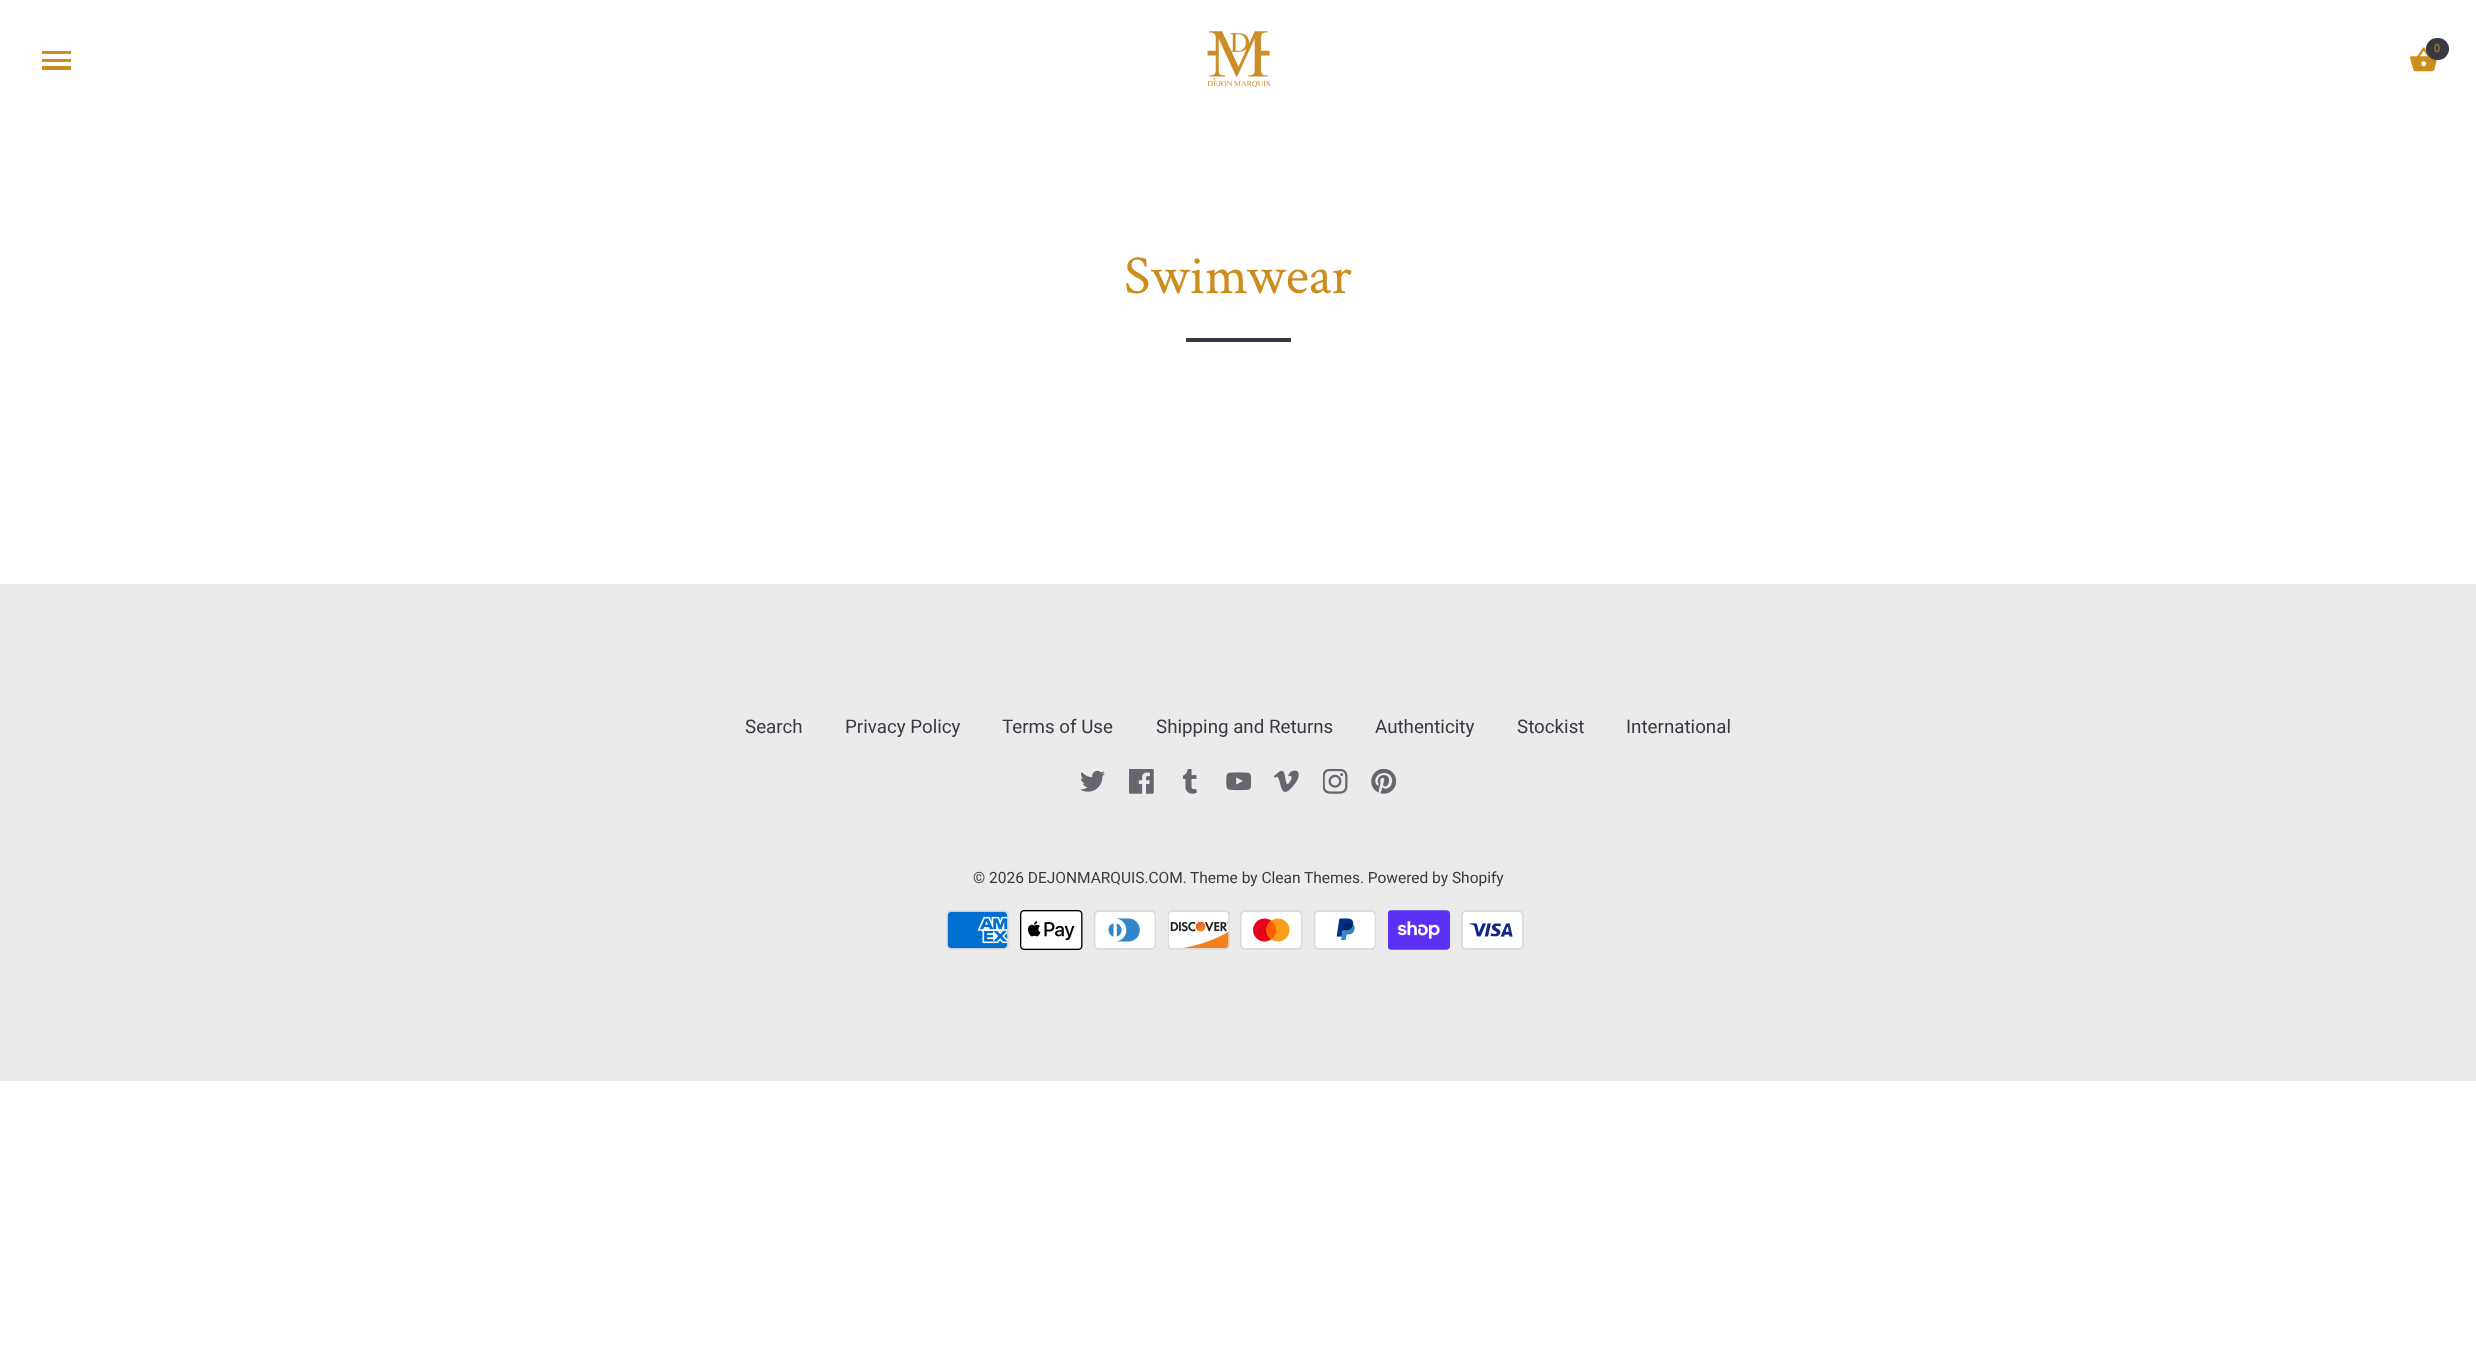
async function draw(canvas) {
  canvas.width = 2476
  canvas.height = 1369
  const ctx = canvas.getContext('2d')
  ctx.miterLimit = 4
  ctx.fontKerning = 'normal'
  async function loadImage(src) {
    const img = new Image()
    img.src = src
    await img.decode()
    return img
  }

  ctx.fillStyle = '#fff'
  ctx.fillRect(0, 0, 2476, 1369)
  ctx.drawImage(await loadImage('image0.png'), 1207, 31, 63, 57)
  ctx.drawImage(await loadImage('image1.png'), 2410, 47, 27, 25)
  ctx.fillStyle = '#393944'
  ctx.beginPath()
  ctx.roundRect(2426, 38, 23, 22, 11)
  ctx.fill()
  ctx.font = '11px Roboto'
  ctx.fillStyle = '#cc8d1c'
  ctx.fillText('0', 2434, 52)
  ctx.fillRect(42, 51, 29, 3)
  ctx.fillRect(42, 59, 29, 3)
  ctx.fillRect(42, 66, 29, 4)
  ctx.font = '55px Crimson Text'
  ctx.fillText('Swimwear', 1124, 293)
  ctx.fillStyle = '#393944'
  ctx.fillRect(1186, 338, 105, 4)
  ctx.fillStyle = '#ebebeb'
  ctx.fillRect(0, 584, 2476, 497)
  ctx.font = '18.75px Roboto'
  ctx.fillStyle = '#393944'
  ctx.fillText('Search', 745, 733)
  ctx.fillText('Privacy Policy', 845, 733)
  ctx.fillText('Terms of Use', 1002, 733)
  ctx.fillText('Shipping and Returns', 1156, 733)
  ctx.fillText('Authenticity', 1375, 733)
  ctx.fillText('Stockist', 1517, 733)
  ctx.fillText('International', 1626, 733)
  ctx.drawImage(await loadImage('image2.png'), 1080, 770, 25, 22)
  ctx.drawImage(await loadImage('image3.png'), 1129, 769, 25, 25)
  ctx.drawImage(await loadImage('image4.png'), 1182, 769, 15, 25)
  ctx.drawImage(await loadImage('image5.png'), 1226, 772, 25, 19)
  ctx.drawImage(await loadImage('image6.png'), 1274, 770, 25, 22)
  ctx.drawImage(await loadImage('image7.png'), 1323, 769, 25, 25)
  ctx.drawImage(await loadImage('image8.png'), 1371, 769, 25, 25)
  ctx.font = '15.5px Roboto'
  ctx.fillText('© 2026 DEJONMARQUIS.COM.', 973, 883)
  ctx.fillText('Theme by Clean Themes. Powered by Shopify', 1190, 883)
  ctx.drawImage(await loadImage('image9.png'), 946, 910, 63, 40)
  ctx.drawImage(await loadImage('image10.png'), 1020, 910, 63, 40)
  ctx.drawImage(await loadImage('image11.png'), 1094, 910, 62, 40)
  ctx.drawImage(await loadImage('image12.png'), 1168, 910, 62, 40)
  ctx.drawImage(await loadImage('image13.png'), 1240, 910, 63, 40)
  ctx.drawImage(await loadImage('image14.png'), 1314, 910, 62, 40)
  ctx.drawImage(await loadImage('image15.png'), 1388, 910, 62, 40)
  ctx.drawImage(await loadImage('image16.png'), 1461, 910, 63, 40)
}

draw(document.querySelector('canvas'))
